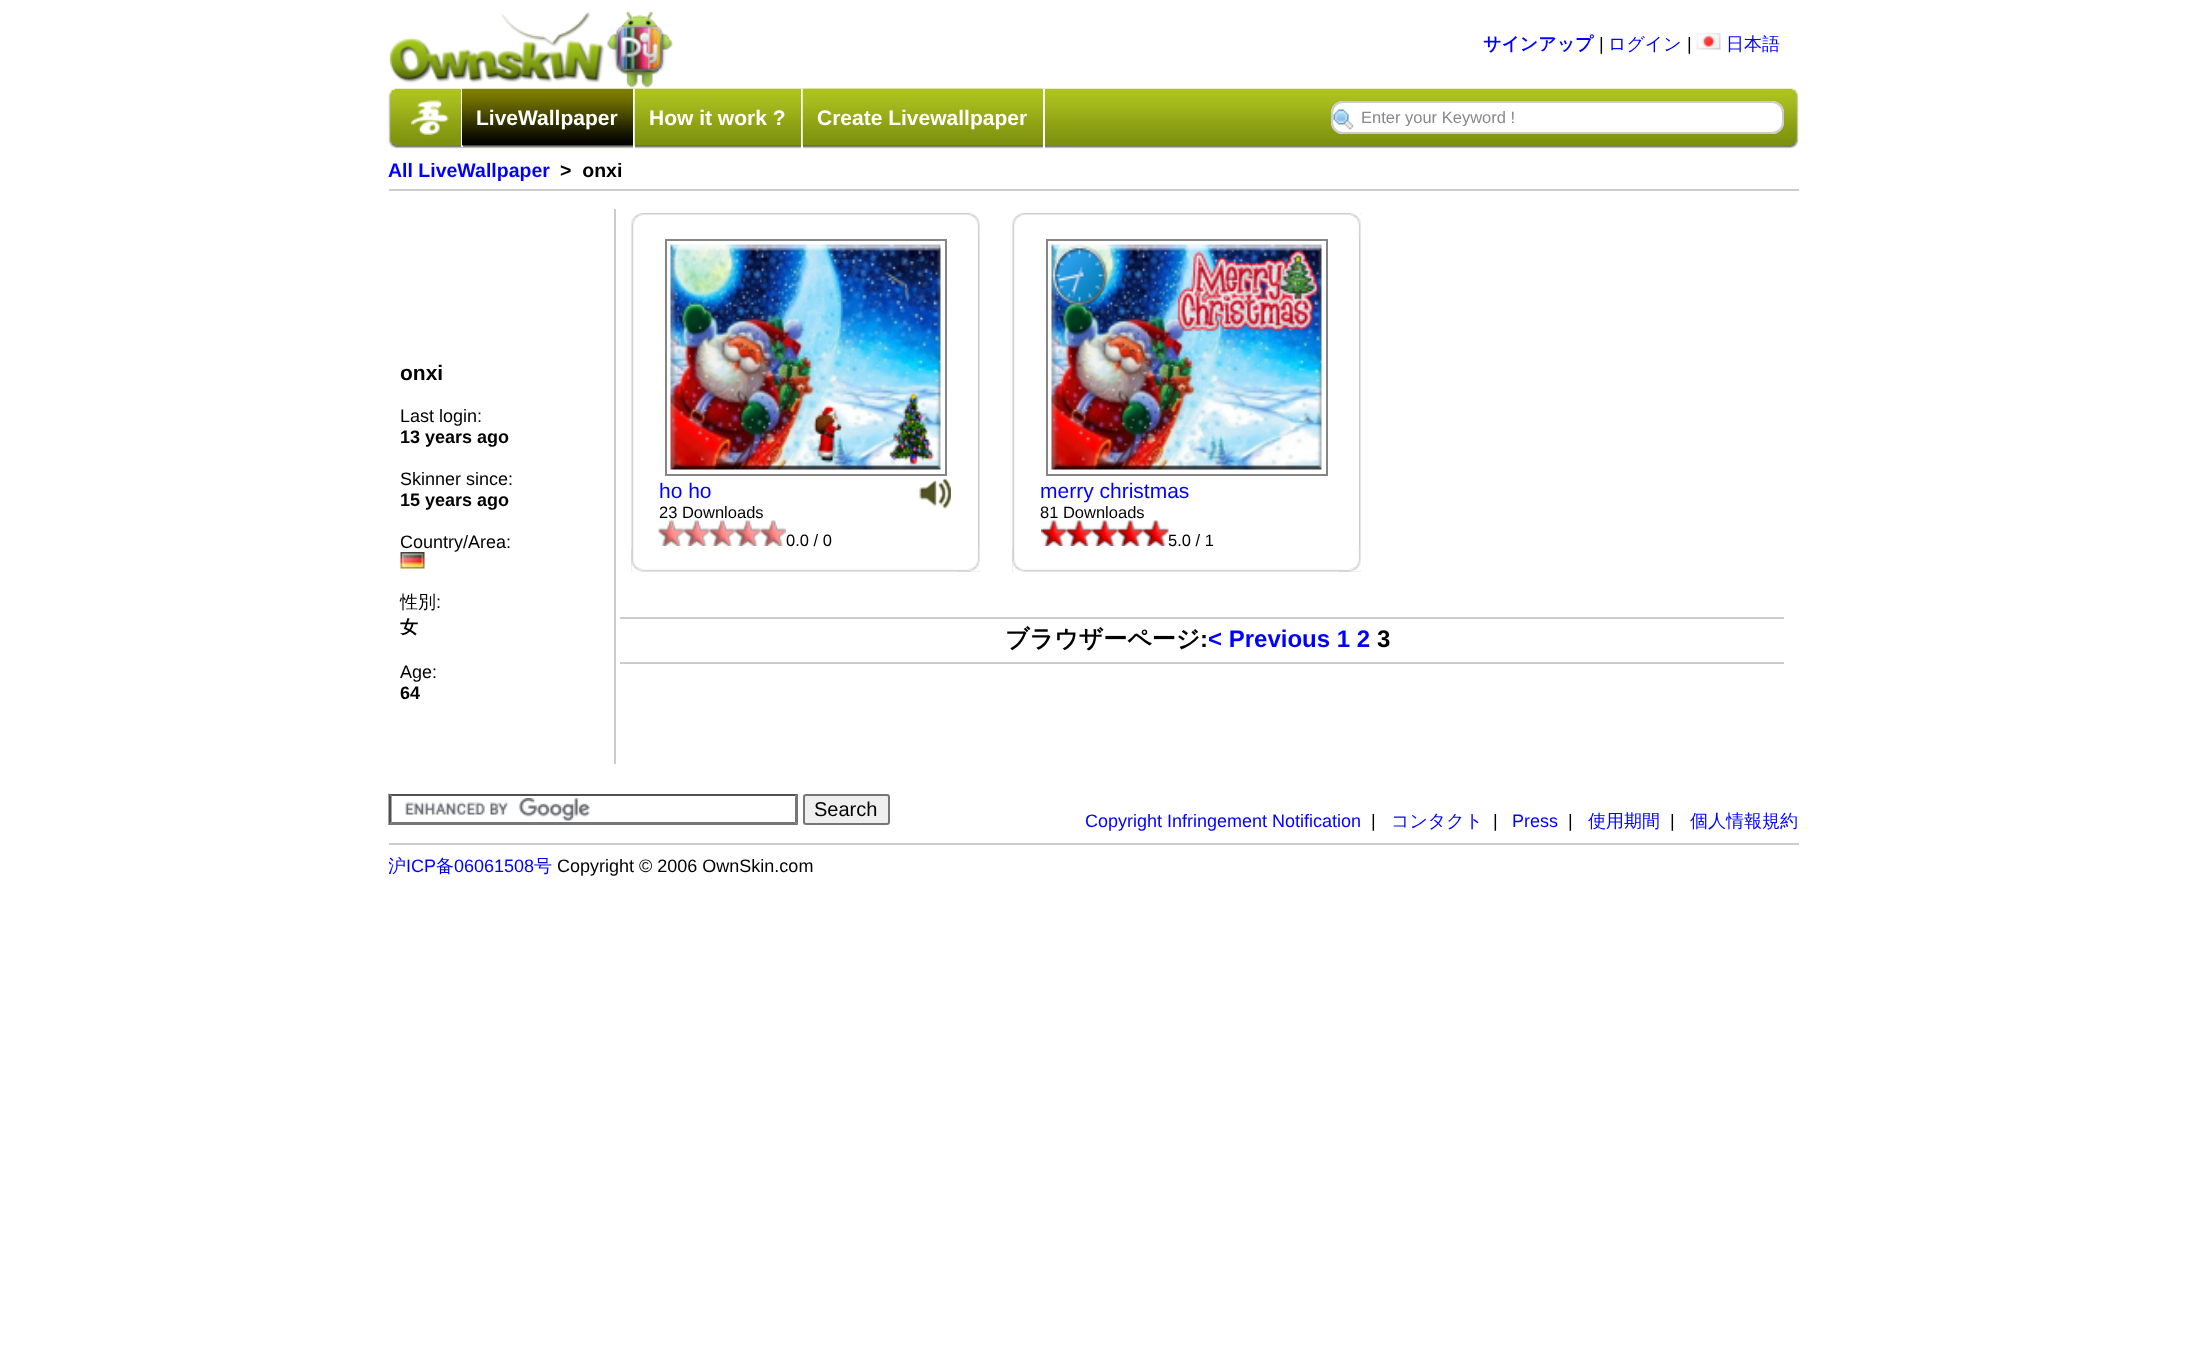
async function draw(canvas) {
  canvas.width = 2185
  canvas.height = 1372
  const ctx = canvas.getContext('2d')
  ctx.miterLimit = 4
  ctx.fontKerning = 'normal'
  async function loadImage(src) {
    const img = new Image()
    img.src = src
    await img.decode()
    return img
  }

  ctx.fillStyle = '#fff'
  ctx.fillRect(0, 0, 2185, 1372)
  ctx.drawImage(await loadImage('image0.png'), 389, 11, 284, 77)
  ctx.font = 'bold 18px WenQuanYi Zen Hei'
  ctx.fillStyle = '#00f'
  ctx.fillText('サインアップ', 1483, 50)
  ctx.font = '18px Liberation Sans'
  ctx.fillStyle = '#000'
  ctx.fillText('|', 1599, 50)
  ctx.font = '500 18px WenQuanYi Zen Hei'
  ctx.fillStyle = '#00f'
  ctx.fillText('ログイン', 1608, 50)
  ctx.font = '18px Liberation Sans'
  ctx.fillStyle = '#000'
  ctx.fillText('|', 1687, 50)
  ctx.drawImage(await loadImage('image1.png'), 1696, 33, 25, 17)
  ctx.font = '500 18px WenQuanYi Zen Hei'
  ctx.fillStyle = '#00f'
  ctx.fillText('日本語', 1726, 50)
  ctx.drawImage(await loadImage('image2.png'), 388, 88, 11, 61)
  ctx.drawImage(await loadImage('image3.png'), 399, 88, 1389, 61)
  ctx.fillStyle = '#fff'
  ctx.fillRect(461, 89, 2, 58)
  ctx.drawImage(await loadImage('image4.png'), 411, 100, 38, 35)
  ctx.fillRect(633, 89, 2, 60)
  ctx.drawImage(await loadImage('image5.png'), 462, 88, 171, 58)
  ctx.font = 'bold 21px Liberation Sans'
  ctx.fillText('LiveWallpaper', 476, 125)
  ctx.fillRect(801, 89, 2, 60)
  ctx.drawImage(await loadImage('image6.png'), 634, 88, 167, 58)
  ctx.fillText('How it work ?', 649, 125)
  ctx.fillRect(1043, 89, 2, 60)
  ctx.drawImage(await loadImage('image7.png'), 802, 88, 241, 58)
  ctx.fillText('Create Livewallpaper', 817, 125)
  ctx.beginPath()
  ctx.roundRect(1331, 101, 453, 33, 12)
  ctx.fill()
  ctx.drawImage(await loadImage('image8.png'), 1333, 109, 21, 21)
  ctx.beginPath()
  ctx.roundRect(1332, 102, 451, 31, 11)
  ctx.strokeStyle = '#ccc'
  ctx.lineWidth = 2
  ctx.stroke()
  ctx.save()
  ctx.beginPath()
  ctx.rect(1362, 108, 420, 18)
  ctx.clip()
  ctx.font = '16.5px Liberation Sans'
  ctx.fillStyle = '#888'
  ctx.fillText('Enter your Keyword !', 1361, 123)
  ctx.restore()
  ctx.drawImage(await loadImage('image9.png'), 1788, 88, 11, 61)
  ctx.fillStyle = '#ccc'
  ctx.fillRect(389, 189, 1410, 2)
  ctx.font = 'bold 19.5px Liberation Sans'
  ctx.fillStyle = '#00f'
  ctx.fillText('All LiveWallpaper', 388, 177)
  ctx.fillStyle = '#000'
  ctx.fillText('>  onxi', 560, 177)
  ctx.fillStyle = '#ccc'
  ctx.fillRect(614, 209, 2, 555)
  ctx.font = 'bold 21px Liberation Sans'
  ctx.fillStyle = '#000'
  ctx.fillText('onxi', 400, 380)
  ctx.font = '18px Liberation Sans'
  ctx.fillText('Last login:', 400, 422)
  ctx.font = 'bold 18px Liberation Sans'
  ctx.fillText('13 years ago', 400, 443)
  ctx.font = '18px Liberation Sans'
  ctx.fillText('Skinner since:', 400, 485)
  ctx.font = 'bold 18px Liberation Sans'
  ctx.fillText('15 years ago', 400, 506)
  ctx.font = '18px Liberation Sans'
  ctx.fillText('Country/Area:', 400, 548)
  ctx.drawImage(await loadImage('image10.png'), 400, 552, 25, 17)
  ctx.font = '500 18px WenQuanYi Zen Hei'
  ctx.fillText('性別', 400, 608)
  ctx.font = '18px Liberation Sans'
  ctx.fillText(':', 436, 608)
  ctx.font = 'bold 18px WenQuanYi Zen Hei'
  ctx.fillText('女', 400, 633)
  ctx.font = '18px Liberation Sans'
  ctx.fillText('Age:', 400, 678)
  ctx.font = 'bold 18px Liberation Sans'
  ctx.fillText('64', 400, 699)
  ctx.drawImage(await loadImage('image11.png'), 631, 213, 349, 359)
  ctx.drawImage(await loadImage('image12.png'), 969, 213, 11, 23)
  ctx.drawImage(await loadImage('image13.png'), 978, 235, 2, 314)
  ctx.strokeStyle = '#858585'
  ctx.strokeRect(666, 240, 280, 235)
  ctx.drawImage(await loadImage('image14.png'), 670, 244, 271, 226)
  ctx.font = '21px Liberation Sans'
  ctx.fillStyle = '#00f'
  ctx.fillText('ho ho', 659, 498)
  ctx.font = '16.5px Liberation Sans'
  ctx.fillStyle = '#000'
  ctx.fillText('23 Downloads', 659, 518)
  ctx.drawImage(await loadImage('image15.png'), 658, 520, 26, 26)
  ctx.drawImage(await loadImage('image16.png'), 684, 520, 26, 26)
  ctx.drawImage(await loadImage('image17.png'), 709, 520, 26, 26)
  ctx.drawImage(await loadImage('image18.png'), 735, 520, 26, 26)
  ctx.drawImage(await loadImage('image19.png'), 760, 520, 26, 26)
  ctx.fillText('0.0 / 0', 786, 546)
  ctx.drawImage(await loadImage('image20.png'), 919, 478, 32, 31)
  ctx.drawImage(await loadImage('image21.png'), 631, 549, 349, 23)
  ctx.drawImage(await loadImage('image22.png'), 957, 549, 23, 23)
  ctx.drawImage(await loadImage('image11.png'), 1012, 213, 349, 359)
  ctx.drawImage(await loadImage('image23.png'), 1350, 213, 11, 23)
  ctx.drawImage(await loadImage('image13.png'), 1359, 235, 2, 314)
  ctx.strokeRect(1047, 240, 280, 235)
  ctx.drawImage(await loadImage('image24.png'), 1051, 244, 271, 226)
  ctx.font = '21px Liberation Sans'
  ctx.fillStyle = '#00f'
  ctx.fillText('merry christmas', 1040, 498)
  ctx.font = '16.5px Liberation Sans'
  ctx.fillStyle = '#000'
  ctx.fillText('81 Downloads', 1040, 518)
  ctx.drawImage(await loadImage('image25.png'), 1041, 520, 26, 26)
  ctx.drawImage(await loadImage('image26.png'), 1066, 520, 26, 26)
  ctx.drawImage(await loadImage('image25.png'), 1092, 520, 26, 26)
  ctx.drawImage(await loadImage('image27.png'), 1117, 520, 26, 26)
  ctx.drawImage(await loadImage('image25.png'), 1143, 520, 26, 26)
  ctx.fillText('5.0 / 1', 1168, 546)
  ctx.drawImage(await loadImage('image21.png'), 1012, 549, 349, 23)
  ctx.drawImage(await loadImage('image28.png'), 1338, 549, 23, 23)
  ctx.fillStyle = '#ccc'
  ctx.fillRect(620, 617, 1164, 2)
  ctx.fillRect(620, 662, 1164, 2)
  ctx.font = 'bold 24px WenQuanYi Zen Hei'
  ctx.fillStyle = '#000'
  ctx.fillText('ブラウザーページ', 1005, 647)
  ctx.font = 'bold 24px Liberation Sans'
  ctx.fillText(':', 1200, 647)
  ctx.fillStyle = '#00f'
  ctx.fillText('< Previous 1 2', 1208, 647)
  ctx.fillStyle = '#000'
  ctx.fillText('3', 1377, 647)
  ctx.drawImage(await loadImage('image29.png'), 405, 798, 185, 23)
  ctx.fillStyle = '#4f4f4f'
  ctx.beginPath()
  ctx.moveTo(388, 794)
  ctx.lineTo(798, 794)
  ctx.lineTo(795, 796)
  ctx.lineTo(392, 796)
  ctx.closePath()
  ctx.fill()
  ctx.fillStyle = '#767676'
  ctx.beginPath()
  ctx.moveTo(798, 793.5)
  ctx.lineTo(798, 825)
  ctx.lineTo(795, 822)
  ctx.lineTo(795, 796.5)
  ctx.closePath()
  ctx.fill()
  ctx.beginPath()
  ctx.moveTo(798, 825)
  ctx.lineTo(388, 825)
  ctx.lineTo(392, 822)
  ctx.lineTo(795, 822)
  ctx.closePath()
  ctx.fill()
  ctx.fillStyle = '#4f4f4f'
  ctx.beginPath()
  ctx.moveTo(388.5, 825)
  ctx.lineTo(388.5, 793.5)
  ctx.lineTo(391.5, 796.5)
  ctx.lineTo(391.5, 822)
  ctx.closePath()
  ctx.fill()
  ctx.fillStyle = '#efefef'
  ctx.beginPath()
  ctx.roundRect(804, 795, 85, 29, 2)
  ctx.fill()
  ctx.strokeStyle = '#767676'
  ctx.stroke()
  ctx.font = '20px Liberation Sans'
  ctx.fillStyle = '#000'
  ctx.fillText('Search', 814, 816)
  ctx.fillStyle = '#ccc'
  ctx.fillRect(389, 843, 1410, 2)
  ctx.font = '18px Liberation Sans'
  ctx.fillStyle = '#00f'
  ctx.fillText('Copyright Infringement Notification', 1085, 827)
  ctx.fillStyle = '#000'
  ctx.fillText('|', 1371, 827)
  ctx.font = '500 18px WenQuanYi Zen Hei'
  ctx.fillStyle = '#00f'
  ctx.fillText('コンタクト', 1391, 827)
  ctx.font = '18px Liberation Sans'
  ctx.fillStyle = '#000'
  ctx.fillText('|', 1493, 827)
  ctx.fillStyle = '#00f'
  ctx.fillText('Press', 1512, 827)
  ctx.fillStyle = '#000'
  ctx.fillText('|', 1568, 827)
  ctx.font = '500 18px WenQuanYi Zen Hei'
  ctx.fillStyle = '#00f'
  ctx.fillText('使用期間', 1588, 827)
  ctx.font = '18px Liberation Sans'
  ctx.fillStyle = '#000'
  ctx.fillText('|', 1670, 827)
  ctx.font = '500 18px WenQuanYi Zen Hei'
  ctx.fillStyle = '#00f'
  ctx.fillText('個人情報規約', 1690, 827)
  ctx.save()
  ctx.beginPath()
  ctx.rect(389, 854, 1410, 25)
  ctx.clip()
  ctx.fillText('沪', 388, 872)
  ctx.restore()
  ctx.font = '18px Liberation Sans'
  ctx.fillText('ICP', 406, 872)
  ctx.font = '500 18px WenQuanYi Zen Hei'
  ctx.fillText('备', 436, 872)
  ctx.font = '18px Liberation Sans'
  ctx.fillText('06061508', 454, 872)
  ctx.font = '500 18px WenQuanYi Zen Hei'
  ctx.fillText('号', 534, 872)
  ctx.font = '18px Liberation Sans'
  ctx.fillStyle = '#000'
  ctx.fillText('Copyright © 2006 OwnSkin.com', 557, 872)
}

draw(document.querySelector('canvas'))
